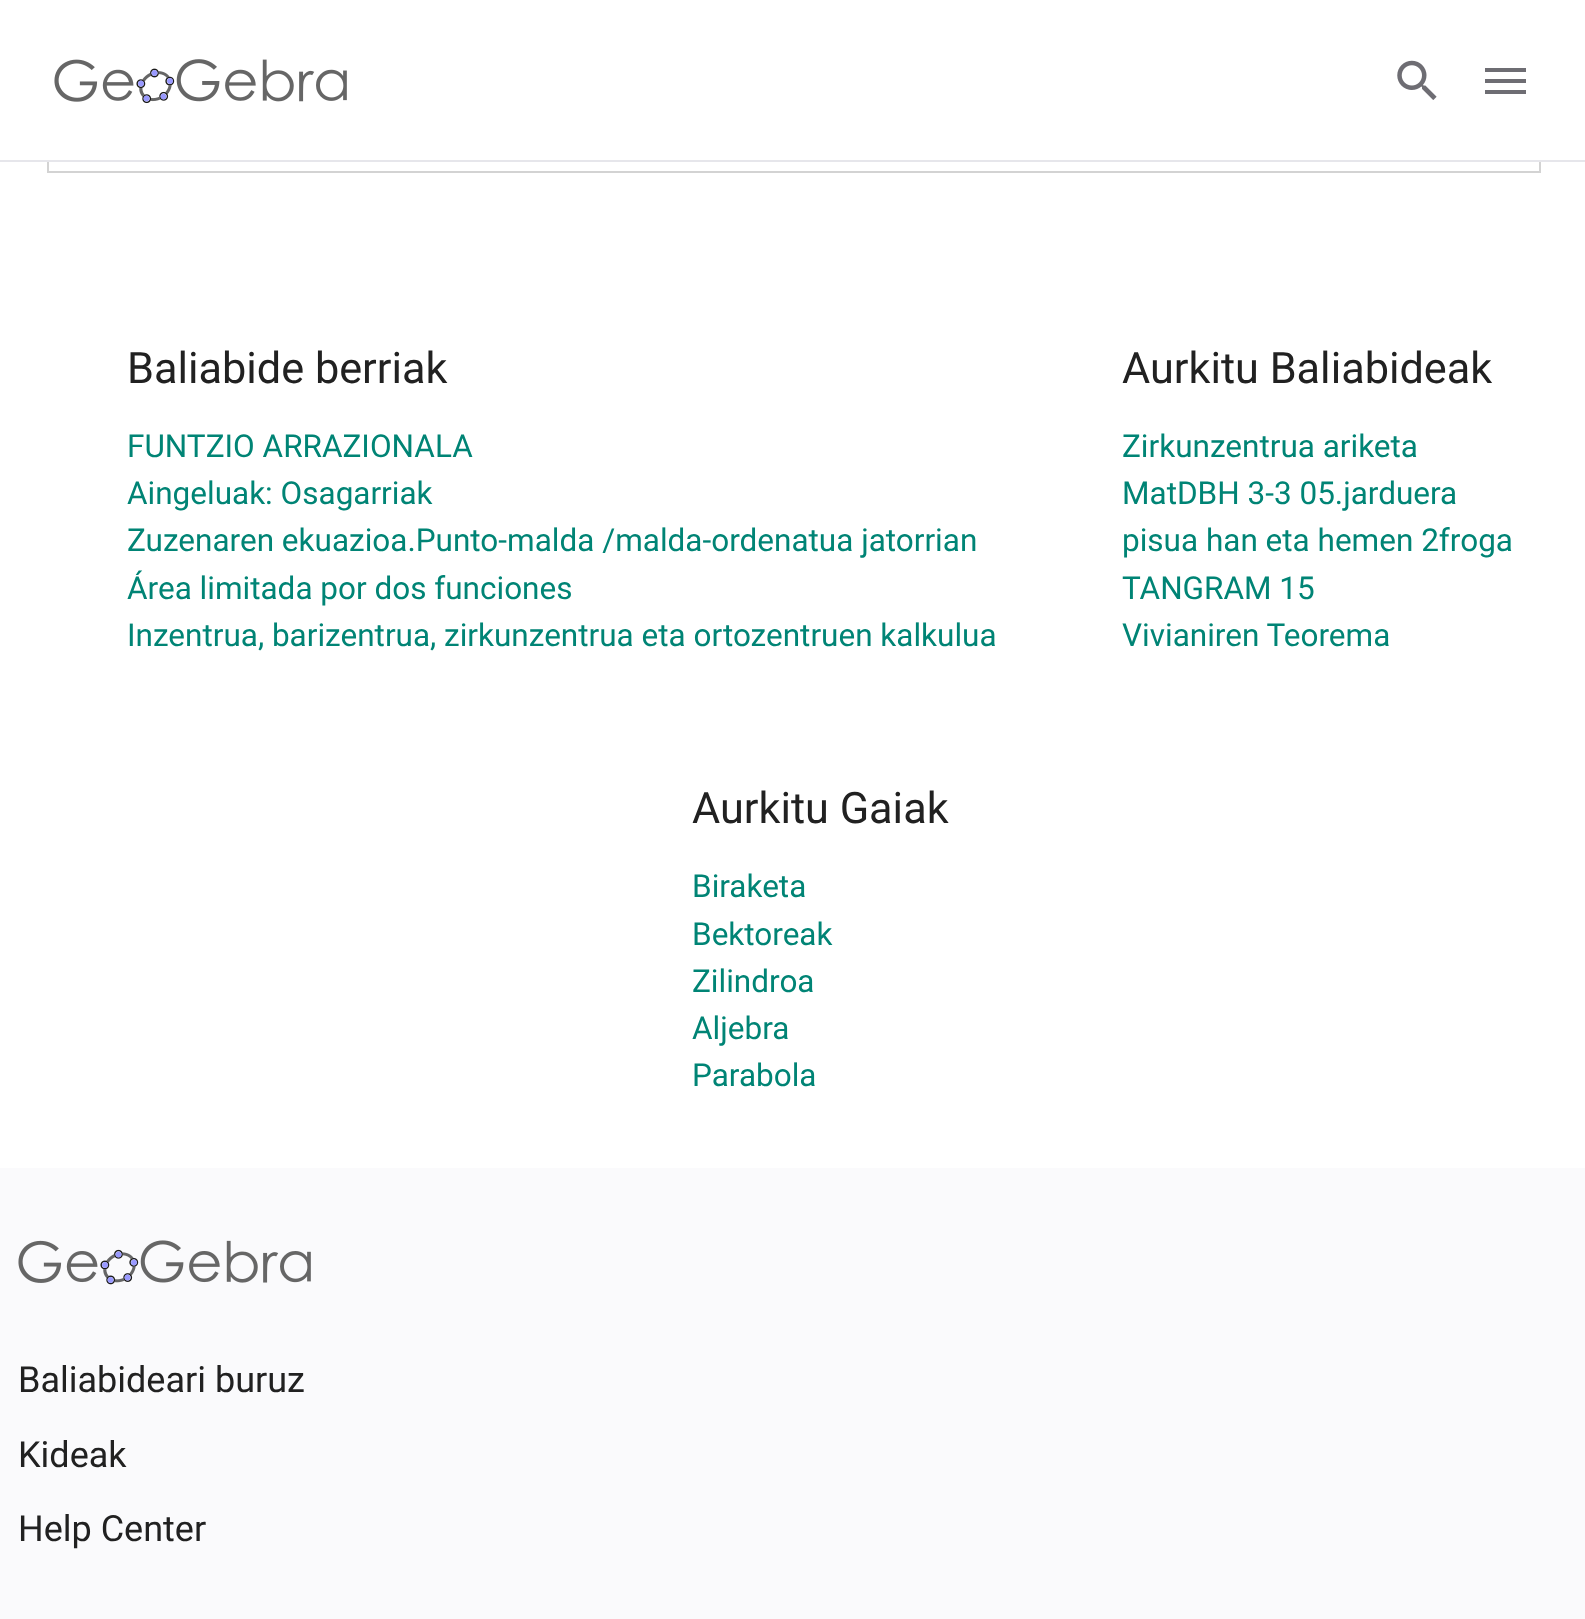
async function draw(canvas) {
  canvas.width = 1585
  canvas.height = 1619
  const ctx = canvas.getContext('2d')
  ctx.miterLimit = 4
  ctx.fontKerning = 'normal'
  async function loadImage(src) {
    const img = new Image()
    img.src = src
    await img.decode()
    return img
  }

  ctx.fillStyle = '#fff'
  ctx.fillRect(0, 0, 1585, 1619)
  ctx.strokeStyle = '#d3d3d3'
  ctx.lineWidth = 2
  ctx.strokeRect(48, -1, 1492, 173)
  ctx.fillRect(47, 0, 1494, 160)
  ctx.fillStyle = '#e6e6eb'
  ctx.fillRect(0, 160, 1585, 2)
  ctx.drawImage(await loadImage('image0.png'), 54, 59, 293, 45)
  ctx.drawImage(await loadImage('image1.png'), 1397, 60, 40, 40)
  ctx.fillStyle = '#6e6d73'
  ctx.beginPath()
  ctx.moveTo(1485, 68)
  ctx.lineTo(1526, 68)
  ctx.lineTo(1526, 72)
  ctx.lineTo(1485, 72)
  ctx.lineTo(1485, 68)
  ctx.moveTo(1485, 79)
  ctx.lineTo(1526, 79)
  ctx.lineTo(1526, 83)
  ctx.lineTo(1485, 83)
  ctx.lineTo(1485, 79)
  ctx.moveTo(1485, 90)
  ctx.lineTo(1526, 90)
  ctx.lineTo(1526, 94)
  ctx.lineTo(1485, 94)
  ctx.closePath()
  ctx.fill()
  ctx.font = '43.25px Roboto'
  ctx.fillStyle = '#212121'
  ctx.fillText('Baliabide berriak', 127, 383)
  ctx.font = '31.5px Roboto'
  ctx.fillStyle = '#008475'
  ctx.fillText('FUNTZIO ARRAZIONALA', 127, 457)
  ctx.fillText('Aingeluak: Osagarriak', 127, 504)
  ctx.fillText('Zuzenaren ekuazioa.Punto-malda /malda-ordenatua jatorrian', 127, 551)
  ctx.fillText('Área limitada por dos funciones', 127, 599)
  ctx.fillText('Inzentrua, barizentrua, zirkunzentrua eta ortozentruen kalkulua', 127, 646)
  ctx.font = '43.25px Roboto'
  ctx.fillStyle = '#212121'
  ctx.fillText('Aurkitu Baliabideak', 1122, 383)
  ctx.font = '31.5px Roboto'
  ctx.fillStyle = '#008475'
  ctx.fillText('Zirkunzentrua ariketa', 1122, 457)
  ctx.fillText('MatDBH 3-3 05.jarduera', 1122, 504)
  ctx.fillText('pisua han eta hemen 2froga', 1122, 551)
  ctx.fillText('TANGRAM 15', 1122, 599)
  ctx.fillText('Vivianiren Teorema', 1122, 646)
  ctx.font = '43.25px Roboto'
  ctx.fillStyle = '#212121'
  ctx.fillText('Aurkitu Gaiak', 692, 823)
  ctx.font = '31.5px Roboto'
  ctx.fillStyle = '#008475'
  ctx.fillText('Biraketa', 692, 897)
  ctx.fillText('Bektoreak', 692, 945)
  ctx.fillText('Zilindroa', 692, 992)
  ctx.fillText('Aljebra', 692, 1039)
  ctx.fillText('Parabola', 692, 1086)
  ctx.fillStyle = '#fafafc'
  ctx.fillRect(0, 1168, 1585, 451)
  ctx.drawImage(await loadImage('image2.png'), 18, 1240, 293, 45)
  ctx.font = '36px Roboto'
  ctx.fillStyle = '#212121'
  ctx.fillText('Baliabideari buruz', 18, 1392)
  ctx.fillText('Kideak', 18, 1467)
  ctx.fillText('Help Center', 18, 1541)
}

draw(document.querySelector('canvas'))
